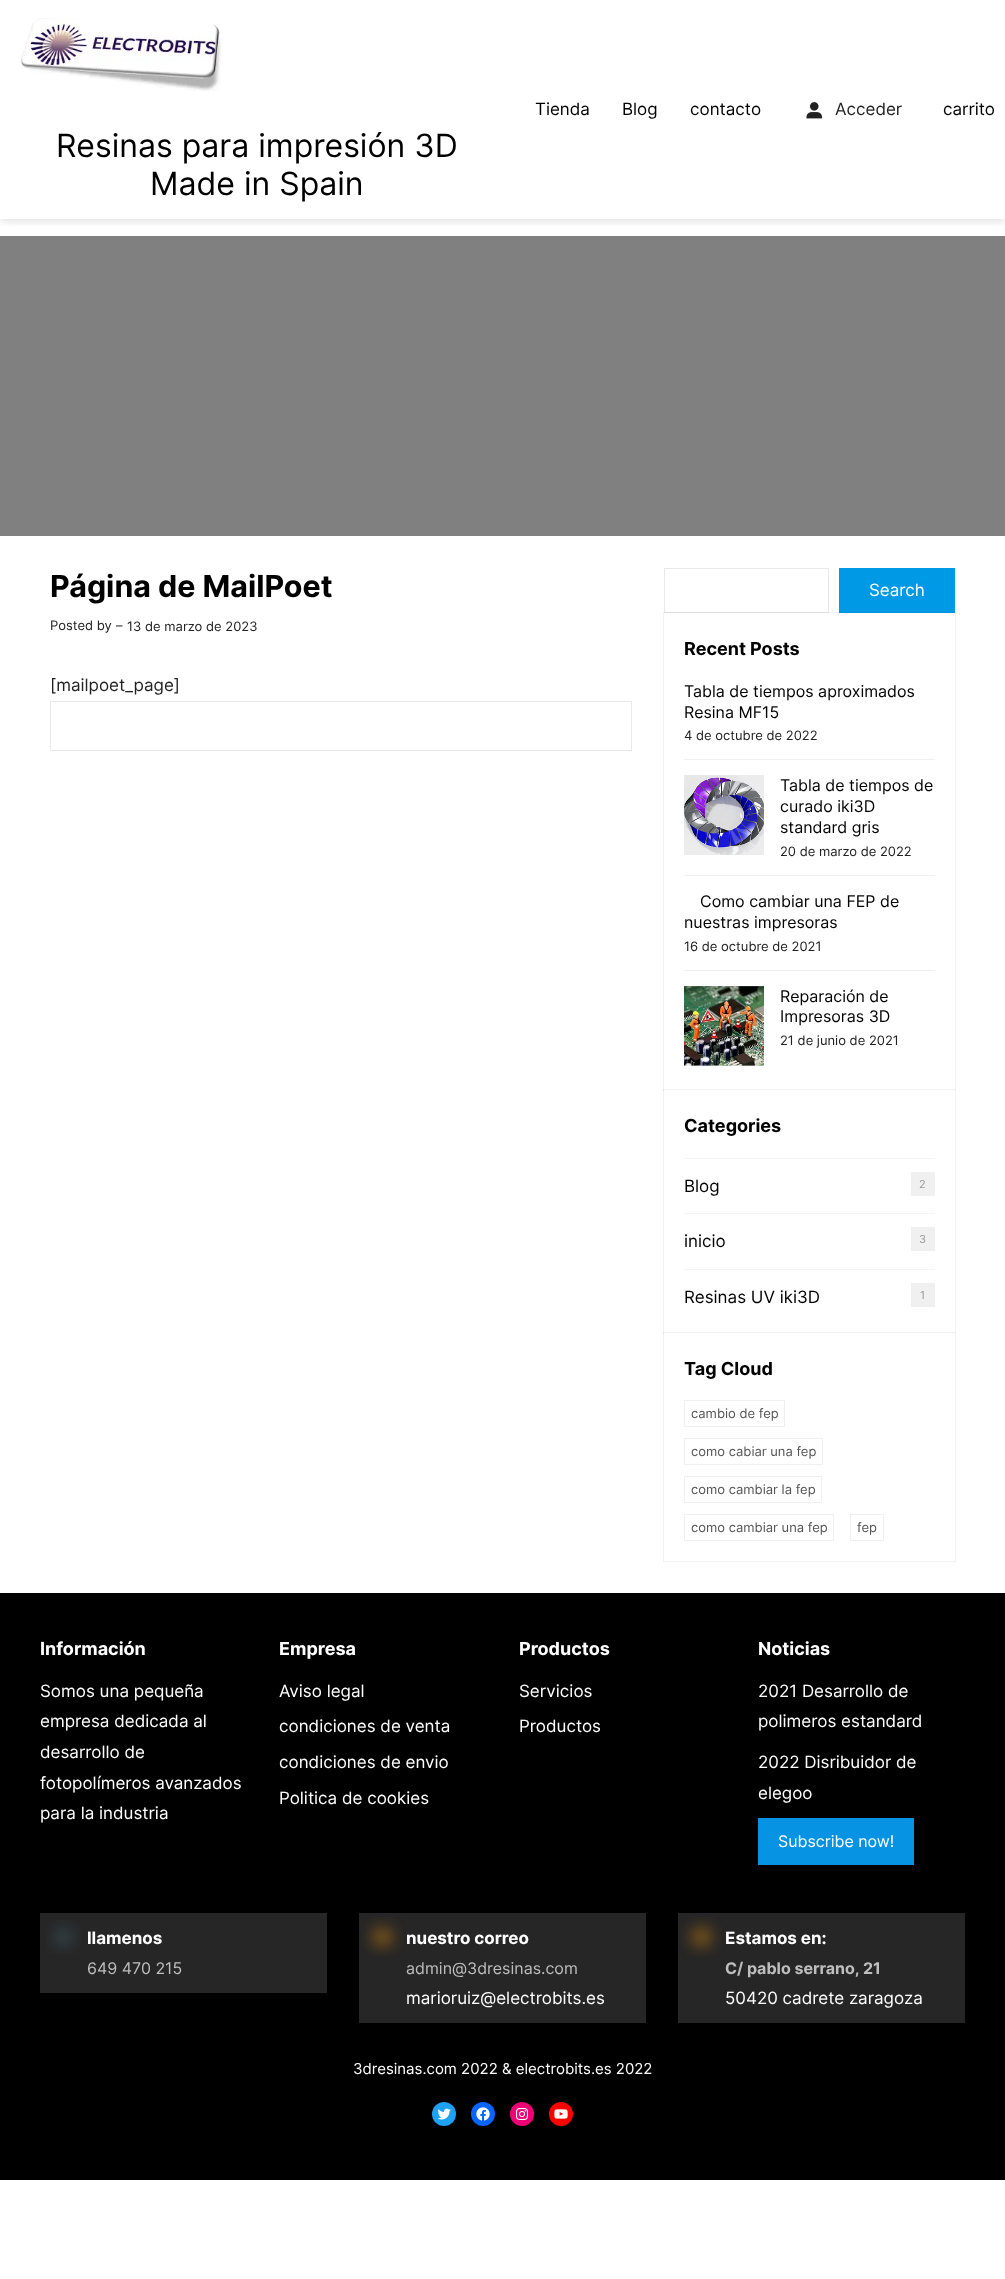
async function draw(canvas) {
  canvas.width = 1005
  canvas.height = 2279
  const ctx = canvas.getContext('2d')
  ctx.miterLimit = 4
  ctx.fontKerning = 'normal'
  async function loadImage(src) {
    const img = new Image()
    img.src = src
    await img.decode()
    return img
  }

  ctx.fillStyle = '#fff'
  ctx.fillRect(0, 0, 1005, 2279)
  ctx.save()
  ctx.beginPath()
  ctx.rect(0, 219, 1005, 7)
  ctx.clip()
  ctx.fillStyle = '#63636333'
  ctx.filter = 'blur(4px)'
  ctx.beginPath()
  ctx.rect(0, 2, 1005, 219)
  ctx.fill()
  ctx.filter = 'none'
  ctx.restore()
  ctx.font = '17px Inter'
  ctx.fillStyle = '#000'
  ctx.fillText('Tienda', 535, 115)
  ctx.fillText('Blog', 622, 115)
  ctx.fillText('contacto', 690, 115)
  ctx.drawImage(await loadImage('image0.png'), 806, 102, 17, 17)
  ctx.fillStyle = '#222'
  ctx.fillText('Acceder', 835, 115)
  ctx.fillStyle = '#000'
  ctx.fillText('carrito', 943, 115)
  ctx.drawImage(await loadImage('image1.png'), 21, 18, 200, 73)
  ctx.font = '32px Inter'
  ctx.fillText('Resinas para impresión 3D', 56, 157)
  ctx.fillText('Made in Spain', 150, 195)
  ctx.fillStyle = '#808080'
  ctx.fillRect(0, 236, 1005, 300)
  ctx.font = 'bold 30.4px Inter'
  ctx.fillStyle = '#000'
  ctx.fillText('Página de MailPoet', 50, 597)
  ctx.font = '13px Inter'
  ctx.fillStyle = '#222'
  ctx.fillText('Posted by', 50, 630)
  ctx.fillText('–', 116, 630)
  ctx.fillText('13 de marzo de 2023', 127, 631)
  ctx.font = '17px Inter'
  ctx.fillText('[mailpoet_page]', 50, 691)
  ctx.strokeStyle = '#e9e9e9'
  ctx.strokeRect(50.5, 701.5, 581, 49)
  ctx.strokeRect(664.5, 568.5, 164, 44)
  ctx.fillStyle = '#0099e5'
  ctx.fillRect(839, 568, 116, 45)
  ctx.fillStyle = '#fff'
  ctx.fillText('Search', 869, 596)
  ctx.strokeStyle = '#0000000d'
  ctx.strokeRect(663.5, 612.5, 292, 478)
  ctx.font = 'bold 18px Inter'
  ctx.fillStyle = '#000'
  ctx.fillText('Recent Posts', 684, 655)
  ctx.fillStyle = '#f0f0f0'
  ctx.fillRect(684, 759, 251, 1)
  ctx.font = '16px Inter'
  ctx.fillStyle = '#000'
  ctx.fillText('Tabla de tiempos aproximados', 684, 697)
  ctx.fillText('Resina MF15', 684, 718)
  ctx.font = '13px Inter'
  ctx.fillStyle = '#222'
  ctx.fillText('4 de octubre de 2022', 684, 740)
  ctx.fillStyle = '#f0f0f0'
  ctx.fillRect(684, 875, 251, 1)
  ctx.drawImage(await loadImage('image2.png'), 684, 775, 80, 80)
  ctx.font = '16px Inter'
  ctx.fillStyle = '#000'
  ctx.fillText('Tabla de tiempos de', 780, 791)
  ctx.fillText('curado iki3D', 780, 812)
  ctx.fillText('standard gris', 780, 833)
  ctx.font = '13px Inter'
  ctx.fillStyle = '#222'
  ctx.fillText('20 de marzo de 2022', 780, 856)
  ctx.fillStyle = '#f0f0f0'
  ctx.fillRect(684, 970, 251, 1)
  ctx.font = '16px Inter'
  ctx.fillStyle = '#000'
  ctx.fillText('Como cambiar una FEP de', 700, 907)
  ctx.fillText('nuestras impresoras', 684, 928)
  ctx.font = '13px Inter'
  ctx.fillStyle = '#222'
  ctx.fillText('16 de octubre de 2021', 684, 951)
  ctx.drawImage(await loadImage('image3.png'), 684, 986, 80, 80)
  ctx.font = '16px Inter'
  ctx.fillStyle = '#000'
  ctx.fillText('Reparación de', 780, 1002)
  ctx.fillText('Impresoras 3D', 780, 1022)
  ctx.font = '13px Inter'
  ctx.fillStyle = '#222'
  ctx.fillText('21 de junio de 2021', 780, 1045)
  ctx.strokeRect(663.5, 1089.5, 292, 244)
  ctx.fillStyle = '#fff'
  ctx.fillRect(664, 1090, 291, 1)
  ctx.font = 'bold 18px Inter'
  ctx.fillStyle = '#000'
  ctx.fillText('Categories', 684, 1132)
  ctx.fillStyle = '#f5f5f5'
  ctx.fillRect(684, 1158, 251, 1)
  ctx.font = '17px Inter'
  ctx.fillStyle = '#000'
  ctx.fillText('Blog', 684, 1192)
  ctx.fillStyle = '#f0f0f0'
  ctx.fillRect(911, 1172, 24, 24)
  ctx.font = '11px Inter'
  ctx.fillStyle = '#999'
  ctx.fillText('2', 919, 1188)
  ctx.fillStyle = '#f5f5f5'
  ctx.fillRect(684, 1213, 251, 1)
  ctx.font = '17px Inter'
  ctx.fillStyle = '#000'
  ctx.fillText('inicio', 684, 1247)
  ctx.fillStyle = '#f0f0f0'
  ctx.fillRect(911, 1227, 24, 24)
  ctx.font = '11px Inter'
  ctx.fillStyle = '#999'
  ctx.fillText('3', 919, 1243)
  ctx.fillStyle = '#f5f5f5'
  ctx.fillRect(684, 1269, 251, 1)
  ctx.font = '17px Inter'
  ctx.fillStyle = '#000'
  ctx.fillText('Resinas UV iki3D', 684, 1303)
  ctx.fillStyle = '#f0f0f0'
  ctx.fillRect(911, 1283, 24, 24)
  ctx.font = '11px Inter'
  ctx.fillStyle = '#999'
  ctx.fillText('1', 920, 1299)
  ctx.strokeRect(663.5, 1332.5, 292, 229)
  ctx.fillStyle = '#fff'
  ctx.fillRect(664, 1333, 291, 1)
  ctx.font = 'bold 18px Inter'
  ctx.fillStyle = '#000'
  ctx.fillText('Tag Cloud', 684, 1375)
  ctx.strokeStyle = '#f0f0f0'
  ctx.strokeRect(684.5, 1400.5, 100, 26)
  ctx.font = '13px Inter'
  ctx.fillStyle = '#555'
  ctx.fillText('cambio de fep', 691, 1418)
  ctx.strokeRect(684.5, 1438.5, 138, 26)
  ctx.fillText('como cabiar una fep', 691, 1456)
  ctx.strokeRect(684.5, 1476.5, 137, 26)
  ctx.fillText('como cambiar la fep', 691, 1494)
  ctx.strokeRect(684.5, 1514.5, 149, 26)
  ctx.fillText('como cambiar una fep', 691, 1532)
  ctx.strokeRect(850.5, 1514.5, 33, 26)
  ctx.fillText('fep', 857, 1532)
  ctx.fillStyle = '#000'
  ctx.fillRect(0, 1593, 1005, 587)
  ctx.font = 'bold 18px Inter'
  ctx.fillStyle = '#fff'
  ctx.fillText('Información', 40, 1655)
  ctx.font = '17px Inter'
  ctx.fillText('Somos una pequeña', 40, 1697)
  ctx.fillText('empresa dedicada al', 40, 1727)
  ctx.fillText('desarrollo de', 40, 1758)
  ctx.fillText('fotopolímeros avanzados', 40, 1789)
  ctx.fillText('para la industria', 40, 1819)
  ctx.font = 'bold 18px Inter'
  ctx.fillText('Empresa', 279, 1655)
  ctx.font = '17px Inter'
  ctx.fillText('Aviso legal', 279, 1697)
  ctx.fillText('condiciones de venta', 279, 1732)
  ctx.fillText('condiciones de envio', 279, 1768)
  ctx.fillText('Politica de cookies', 279, 1804)
  ctx.font = 'bold 18px Inter'
  ctx.fillText('Productos', 519, 1655)
  ctx.font = '17px Inter'
  ctx.fillText('Servicios', 519, 1697)
  ctx.fillText('Productos', 519, 1732)
  ctx.font = 'bold 18px Inter'
  ctx.fillText('Noticias', 758, 1655)
  ctx.font = '17px Inter'
  ctx.fillText('2021 Desarrollo de', 758, 1697)
  ctx.fillText('polimeros estandard', 758, 1727)
  ctx.fillText('2022 Disribuidor de', 758, 1768)
  ctx.fillText('elegoo', 758, 1799)
  ctx.fillStyle = '#0693e3'
  ctx.fillRect(758, 1818, 156, 47)
  ctx.font = '16px Inter'
  ctx.fillStyle = '#fff'
  ctx.fillText('Subscribe now!', 778, 1847)
  ctx.fillStyle = '#262626'
  ctx.fillRect(40, 1913, 287, 80)
  ctx.drawImage(await loadImage('image4.png'), 46, 1920, 35, 34)
  ctx.font = 'bold 17px Inter'
  ctx.fillStyle = '#fff'
  ctx.fillText('llamenos', 87, 1944)
  ctx.font = '16px Inter'
  ctx.fillStyle = '#bebebe'
  ctx.fillText('649 470 215', 87, 1974)
  ctx.fillStyle = '#262626'
  ctx.fillRect(359, 1913, 287, 110)
  ctx.drawImage(await loadImage('image5.png'), 362, 1917, 41, 40)
  ctx.font = 'bold 17px Inter'
  ctx.fillStyle = '#fff'
  ctx.fillText('nuestro correo', 406, 1944)
  ctx.font = '16px Inter'
  ctx.fillStyle = '#bebebe'
  ctx.fillText('admin@3dresinas.com', 406, 1974)
  ctx.font = '17px Inter'
  ctx.fillStyle = '#fff'
  ctx.fillText('marioruiz@electrobits.es', 406, 2004)
  ctx.fillStyle = '#262626'
  ctx.fillRect(678, 1913, 287, 110)
  ctx.drawImage(await loadImage('image5.png'), 681, 1917, 41, 40)
  ctx.font = 'bold 17px Inter'
  ctx.fillStyle = '#fff'
  ctx.fillText('Estamos en:', 725, 1944)
  ctx.font = 'bold 16px Inter'
  ctx.fillStyle = '#bebebe'
  ctx.fillText('C/ pablo serrano, 21', 725, 1974)
  ctx.font = '17px Inter'
  ctx.fillStyle = '#fff'
  ctx.fillText('50420 cadrete zaragoza', 725, 2004)
  ctx.font = '15px Inter'
  ctx.fillText('3dresinas.com 2022 & electrobits.es 2022', 353, 2074)
  ctx.fillStyle = '#1da1f2'
  ctx.beginPath()
  ctx.arc(444, 2114, 12, 0, 2 * Math.PI)
  ctx.fill()
  ctx.drawImage(await loadImage('image6.png'), 437, 2108, 14, 12)
  ctx.fillStyle = '#0866ff'
  ctx.beginPath()
  ctx.arc(483, 2114, 12, 0, 2 * Math.PI)
  ctx.fill()
  ctx.drawImage(await loadImage('image7.png'), 476, 2107, 14, 14)
  ctx.fillStyle = '#f00075'
  ctx.beginPath()
  ctx.arc(522, 2114, 12, 0, 2 * Math.PI)
  ctx.fill()
  ctx.drawImage(await loadImage('image8.png'), 516, 2108, 12, 12)
  ctx.fillStyle = '#f00'
  ctx.beginPath()
  ctx.arc(561, 2114, 12, 0, 2 * Math.PI)
  ctx.fill()
  ctx.drawImage(await loadImage('image9.png'), 554, 2109, 14, 10)
}

draw(document.querySelector('canvas'))
